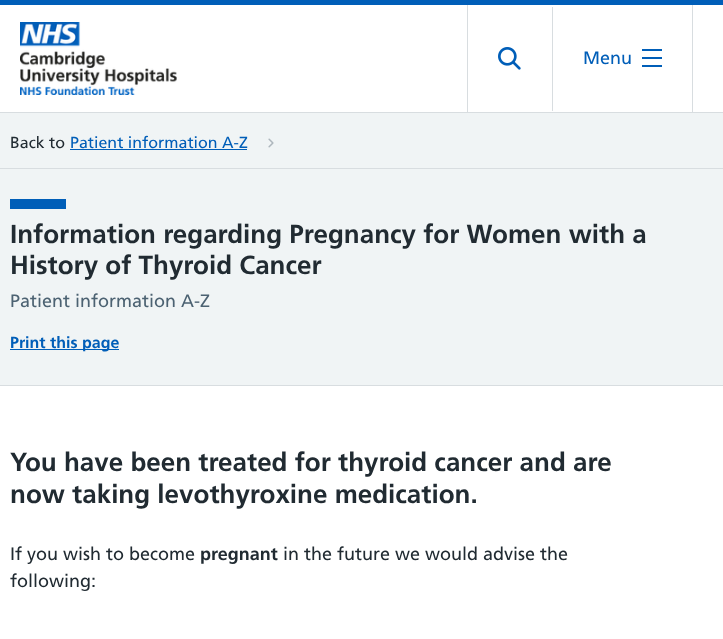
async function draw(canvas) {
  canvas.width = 723
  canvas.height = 639
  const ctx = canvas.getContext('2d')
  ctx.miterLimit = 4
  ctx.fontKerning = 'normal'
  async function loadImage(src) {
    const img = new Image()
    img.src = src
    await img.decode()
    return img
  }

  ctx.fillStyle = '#fff'
  ctx.fillRect(0, 0, 723, 639)
  ctx.fillStyle = '#005eb8'
  ctx.fillRect(0, 0, 723, 5)
  ctx.fillStyle = '#d8dde0'
  ctx.fillRect(0, 112, 723, 1)
  ctx.drawImage(await loadImage('image0.png'), 20, 22, 157, 73)
  ctx.fillRect(692, 5, 1, 107)
  ctx.fillRect(467, 5, 1, 107)
  ctx.fillRect(552, 7, 1, 104)
  ctx.drawImage(await loadImage('image1.png'), 498, 47, 23, 23)
  ctx.font = '18px Frutiger'
  ctx.fillStyle = '#005eb8'
  ctx.fillText('Menu', 583, 64)
  ctx.fillRect(642, 49, 20, 2)
  ctx.fillRect(642, 57, 20, 2)
  ctx.fillRect(642, 65, 20, 2)
  ctx.fillStyle = '#f0f4f5'
  ctx.fillRect(0, 113, 723, 55)
  ctx.fillStyle = '#d8dde0'
  ctx.fillRect(0, 168, 723, 1)
  ctx.font = '16px Frutiger'
  ctx.fillStyle = '#212b32'
  ctx.fillText('Back to', 10, 148)
  ctx.fillStyle = '#005eb8'
  ctx.fillText('Patient information A-Z', 70, 148)
  ctx.fillRect(70, 149, 177, 1)
  ctx.drawImage(await loadImage('image2.png'), 268, 138, 6, 10)
  ctx.fillStyle = '#f0f4f5'
  ctx.fillRect(0, 169, 723, 216)
  ctx.fillStyle = '#d8dde0'
  ctx.fillRect(0, 385, 723, 1)
  ctx.fillStyle = '#005eb8'
  ctx.fillRect(10, 199, 56, 10)
  ctx.font = 'bold 26px Frutiger'
  ctx.fillStyle = '#212b32'
  ctx.fillText('Information regarding Pregnancy for Women with a', 10, 243)
  ctx.fillText('History of Thyroid Cancer', 10, 274)
  ctx.font = '18px Frutiger'
  ctx.fillStyle = '#4c6272'
  ctx.fillText('Patient information A-Z', 10, 307)
  ctx.fillStyle = '#005eb8'
  ctx.fillRect(10, 349, 109, 1)
  ctx.font = 'bold 16px Frutiger'
  ctx.fillText('Print this page', 10, 348)
  ctx.font = 'bold 26px Frutiger'
  ctx.fillStyle = '#212b32'
  ctx.fillText('You have been treated for thyroid cancer and are', 10, 471)
  ctx.fillText('now taking levothyroxine medication.', 10, 503)
  ctx.font = '18px Frutiger'
  ctx.fillText('If you wish to become', 10, 560)
  ctx.font = 'bold 18px Frutiger'
  ctx.fillText('pregnant', 200, 560)
  ctx.font = '18px Frutiger'
  ctx.fillText('in the future we would advise the', 283, 560)
  ctx.fillText('following:', 10, 587)
}

draw(document.querySelector('canvas'))
